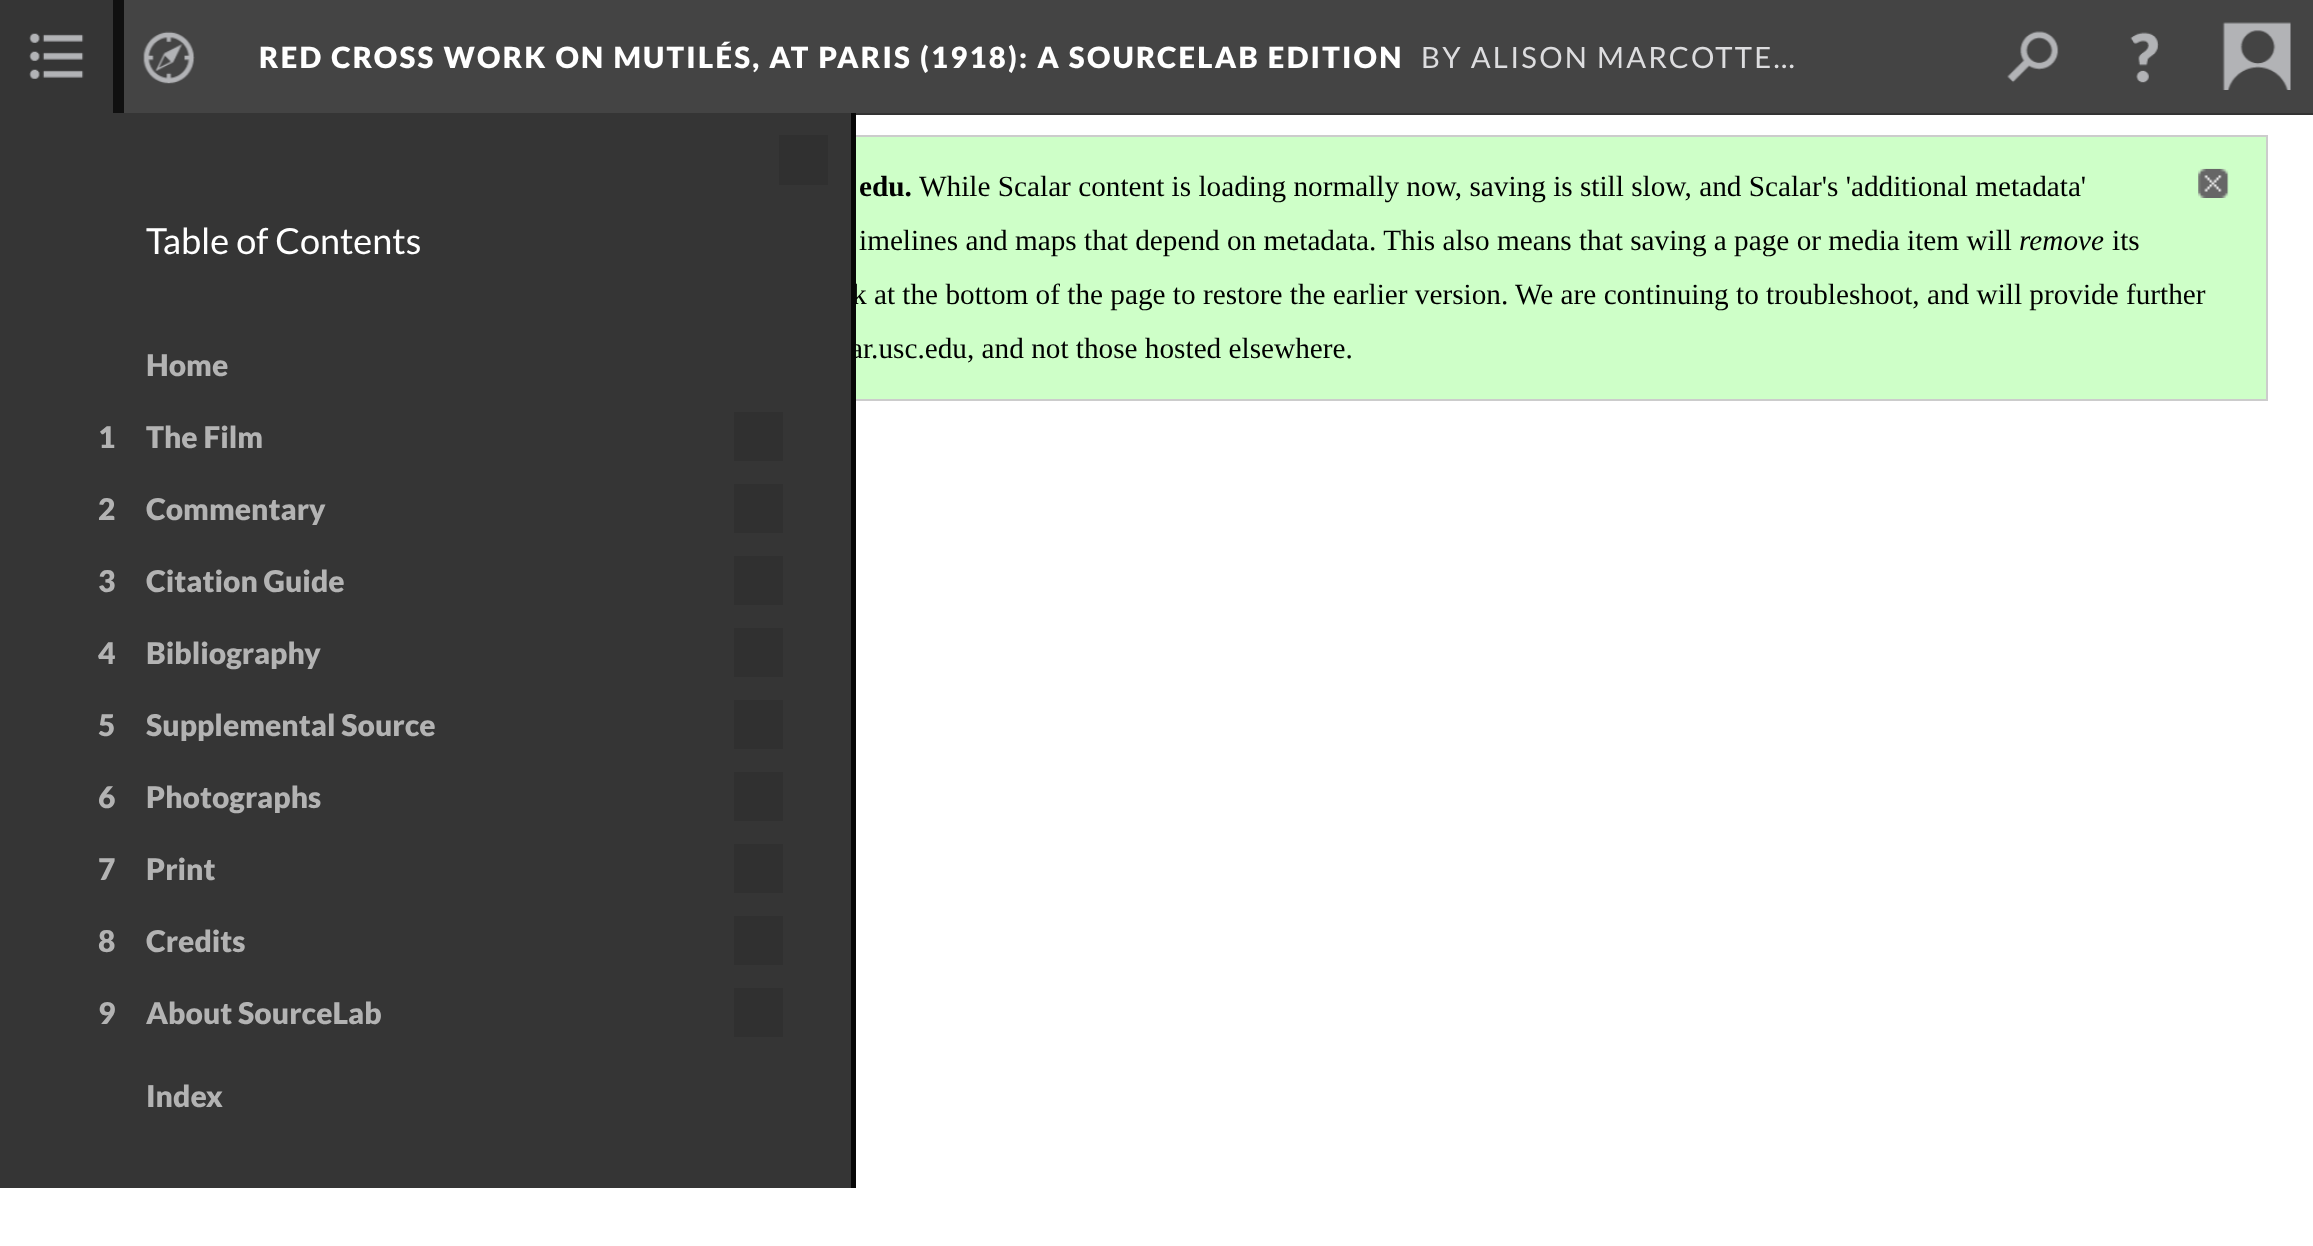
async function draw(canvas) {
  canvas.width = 2313
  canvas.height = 1246
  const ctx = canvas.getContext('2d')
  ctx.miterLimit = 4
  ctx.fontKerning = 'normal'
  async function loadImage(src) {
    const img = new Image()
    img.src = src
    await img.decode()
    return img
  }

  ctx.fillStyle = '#fff'
  ctx.fillRect(0, 0, 2313, 1246)
  ctx.fillStyle = '#444'
  ctx.fillRect(124, 0, 2189, 113)
  ctx.fillStyle = '#333'
  ctx.fillRect(856, 113, 1457, 2)
  ctx.letterSpacing = '2.25px'
  ctx.font = '900 29.25px Lato'
  ctx.fillStyle = '#fff'
  ctx.fillText('RED CROSS WORK ON MUTILÉS, AT PARIS (1918): A SOURCELAB EDITION', 259, 68)
  ctx.font = '29.25px Lato'
  ctx.fillStyle = '#dddddf'
  ctx.fillText('BY ALISON MARCOTTE…', 1421, 68)
  ctx.drawImage(await loadImage('image0.png'), 2007, 31, 52, 52)
  ctx.drawImage(await loadImage('image1.png'), 2130, 32, 29, 51)
  ctx.drawImage(await loadImage('image2.png'), 2222, 22, 69, 68)
  ctx.drawImage(await loadImage('image3.png'), 143, 31, 52, 53)
  ctx.fillStyle = '#353535'
  ctx.fillRect(0, 0, 113, 113)
  ctx.drawImage(await loadImage('image4.png'), 29, 33, 55, 46)
  ctx.strokeStyle = '#101010'
  ctx.lineWidth = 11
  ctx.strokeRect(-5.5, -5.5, 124, 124)
  ctx.fillStyle = '#ceffc8'
  ctx.fillRect(856, 137, 1410, 262)
  ctx.strokeStyle = '#ccc'
  ctx.lineWidth = 2
  ctx.strokeRect(24, 136, 2243, 264)
  ctx.letterSpacing = '0px'
  ctx.font = '29.25px Liberation Serif'
  ctx.fillStyle = '#000'
  ctx.fillText('ar.usc.edu, and not those hosted elsewhere.', 850, 358)
  ctx.fillStyle = '#353535'
  ctx.fillRect(0, 113, 851, 1075)
  ctx.fillStyle = '#000'
  ctx.fillText('k at the bottom of the page to restore the earlier version. We are continuing to troubleshoot, and will provide further', 852, 304)
  ctx.fillStyle = '#070707'
  ctx.fillRect(851, 113, 5, 1075)
  ctx.fillStyle = '#303030'
  ctx.fillRect(779, 135, 49, 50)
  ctx.font = '36px Lato'
  ctx.fillStyle = '#fff'
  ctx.fillText('Table of Contents', 146, 254)
  ctx.font = '900 30px Lato'
  ctx.fillStyle = '#b3b3b3'
  ctx.fillText('Home', 146, 376)
  ctx.fillText('1', 98, 448)
  ctx.fillText('The Film', 146, 448)
  ctx.fillStyle = '#303030'
  ctx.fillRect(734, 412, 49, 49)
  ctx.fillStyle = '#b3b3b3'
  ctx.fillText('2', 98, 520)
  ctx.fillText('Commentary', 146, 520)
  ctx.fillStyle = '#303030'
  ctx.fillRect(734, 484, 49, 49)
  ctx.fillStyle = '#b3b3b3'
  ctx.fillText('3', 98, 592)
  ctx.fillText('Citation Guide', 146, 592)
  ctx.fillStyle = '#303030'
  ctx.fillRect(734, 556, 49, 49)
  ctx.fillStyle = '#b3b3b3'
  ctx.fillText('4', 98, 664)
  ctx.fillText('Bibliography', 146, 664)
  ctx.fillStyle = '#303030'
  ctx.fillRect(734, 628, 49, 49)
  ctx.fillStyle = '#b3b3b3'
  ctx.fillText('5', 98, 736)
  ctx.fillText('Supplemental Source', 146, 736)
  ctx.fillStyle = '#303030'
  ctx.fillRect(734, 700, 49, 49)
  ctx.fillStyle = '#b3b3b3'
  ctx.fillText('6', 98, 808)
  ctx.fillText('Photographs', 146, 808)
  ctx.fillStyle = '#303030'
  ctx.fillRect(734, 772, 49, 49)
  ctx.fillStyle = '#b3b3b3'
  ctx.fillText('7', 98, 880)
  ctx.fillText('Print', 146, 880)
  ctx.fillStyle = '#303030'
  ctx.fillRect(734, 844, 49, 49)
  ctx.fillStyle = '#b3b3b3'
  ctx.fillText('8', 98, 952)
  ctx.fillText('Credits', 146, 952)
  ctx.fillStyle = '#303030'
  ctx.fillRect(734, 916, 49, 49)
  ctx.fillStyle = '#b3b3b3'
  ctx.fillText('9', 98, 1024)
  ctx.fillText('About SourceLab', 146, 1024)
  ctx.fillStyle = '#303030'
  ctx.fillRect(734, 988, 49, 49)
  ctx.fillStyle = '#b3b3b3'
  ctx.fillText('Index', 146, 1107)
  ctx.font = 'bold 29.25px Liberation Serif'
  ctx.fillStyle = '#000'
  ctx.fillText('edu.', 859, 196)
  ctx.font = '29.25px Liberation Serif'
  ctx.fillText('While Scalar content is loading normally now, saving is still slow, and Scalar\'s \'additional metadata\'', 919, 196)
  ctx.drawImage(await loadImage('image5.png'), 2198, 168, 31, 30)
  ctx.fillText('imelines and maps that depend on metadata. This also means that saving a page or media item will', 859, 250)
  ctx.font = 'italic 29.25px Liberation Serif'
  ctx.fillText('remove', 2019, 250)
  ctx.font = '29.25px Liberation Serif'
  ctx.fillText('its', 2112, 250)
}

draw(document.querySelector('canvas'))
